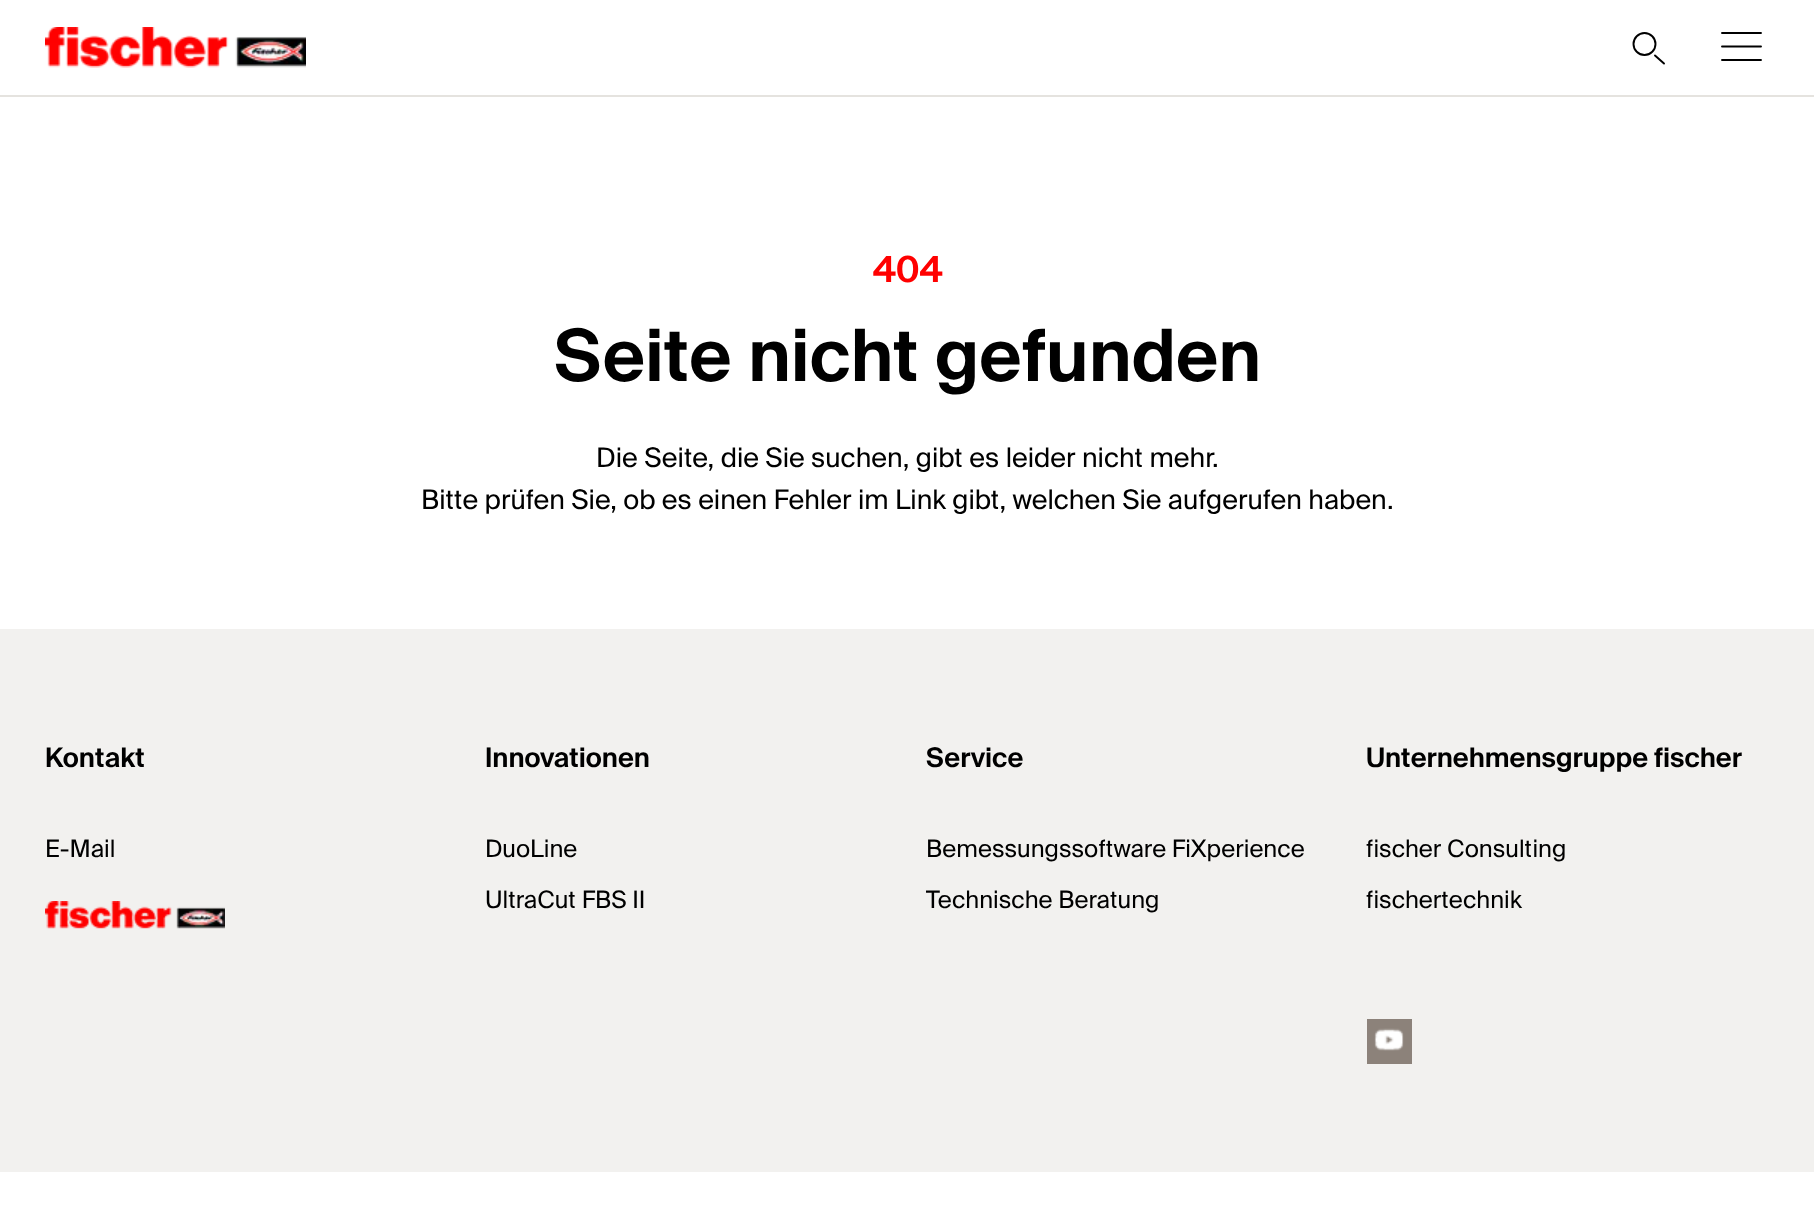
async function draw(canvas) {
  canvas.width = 1814
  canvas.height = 1211
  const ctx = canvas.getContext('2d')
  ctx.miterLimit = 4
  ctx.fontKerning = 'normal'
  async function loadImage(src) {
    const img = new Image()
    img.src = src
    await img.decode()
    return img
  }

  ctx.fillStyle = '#fff'
  ctx.fillRect(0, 0, 1814, 1211)
  ctx.fillStyle = '#e5e3df'
  ctx.fillRect(0, 95, 1814, 2)
  ctx.drawImage(await loadImage('image0.png'), 45, 27, 261, 41)
  ctx.beginPath()
  ctx.arc(1644.5, 44, 11, 0, 2 * Math.PI)
  ctx.strokeStyle = '#000'
  ctx.lineWidth = 1.9
  ctx.stroke()
  ctx.beginPath()
  ctx.moveTo(1664, 63.5)
  ctx.lineTo(1655, 55.5)
  ctx.lineCap = 'round'
  ctx.stroke()
  ctx.beginPath()
  ctx.moveTo(1722, 46.5)
  ctx.lineTo(1761, 46.5)
  ctx.moveTo(1722, 33)
  ctx.lineTo(1761, 33)
  ctx.moveTo(1722, 60)
  ctx.lineTo(1761, 60)
  ctx.lineJoin = 'round'
  ctx.stroke()
  ctx.font = '600 36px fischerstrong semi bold'
  ctx.fillStyle = '#f00'
  ctx.fillText('404', 873, 282)
  ctx.font = '600 72px fischerstrong semi bold'
  ctx.fillStyle = '#000'
  ctx.fillText('Seite nicht gefunden', 554, 381)
  ctx.font = '27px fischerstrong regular'
  ctx.fillText('Die Seite, die Sie suchen, gibt es leider nicht mehr.', 596, 467)
  ctx.fillText('Bitte prüfen Sie, ob es einen Fehler im Link gibt, welchen Sie aufgerufen haben.', 421, 509)
  ctx.fillStyle = '#f2f1ef'
  ctx.fillRect(0, 629, 1814, 543)
  ctx.font = '600 27px fischerstrong semi bold'
  ctx.fillStyle = '#000'
  ctx.fillText('Kontakt', 45, 767)
  ctx.font = '24px fischerstrong regular'
  ctx.fillText('E-Mail', 45, 857)
  ctx.drawImage(await loadImage('image1.png'), 45, 901, 180, 28)
  ctx.font = '600 27px fischerstrong semi bold'
  ctx.fillText('Innovationen', 485, 767)
  ctx.font = '24px fischerstrong regular'
  ctx.fillText('DuoLine', 485, 857)
  ctx.fillText('UltraCut FBS II', 485, 908)
  ctx.font = '600 27px fischerstrong semi bold'
  ctx.fillText('Service', 926, 767)
  ctx.font = '24px fischerstrong regular'
  ctx.fillText('Bemessungssoftware FiXperience', 926, 857)
  ctx.fillText('Technische Beratung', 926, 908)
  ctx.font = '600 27px fischerstrong semi bold'
  ctx.fillText('Unternehmensgruppe fischer', 1366, 767)
  ctx.font = '24px fischerstrong regular'
  ctx.fillText('fischer Consulting', 1366, 857)
  ctx.fillText('fischertechnik', 1366, 908)
  ctx.fillStyle = '#8c827a'
  ctx.fillRect(1367, 1019, 45, 45)
  ctx.drawImage(await loadImage('image2.png'), 1374, 1028, 30, 23)
}

draw(document.querySelector('canvas'))
